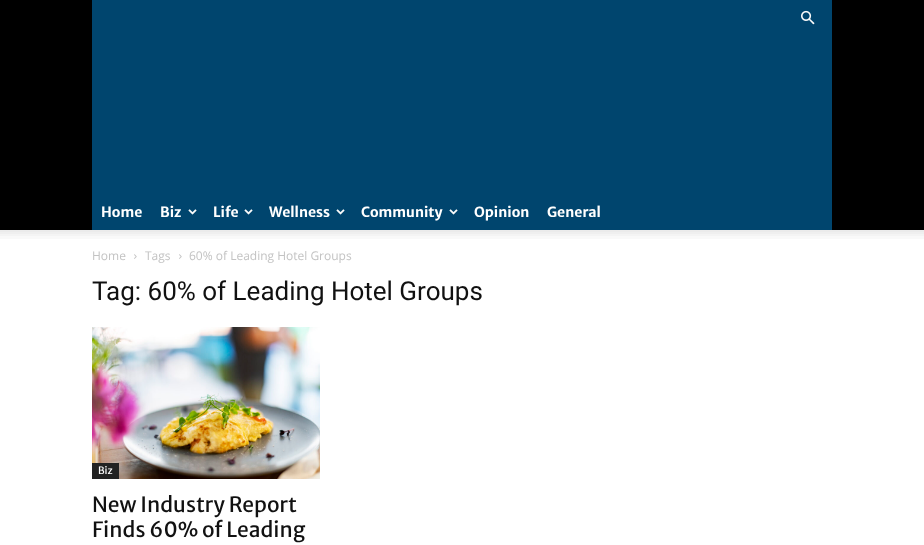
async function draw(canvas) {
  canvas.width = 924
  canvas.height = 545
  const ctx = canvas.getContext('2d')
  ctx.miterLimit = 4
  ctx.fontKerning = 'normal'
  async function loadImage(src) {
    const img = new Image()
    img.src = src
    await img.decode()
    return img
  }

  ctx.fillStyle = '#fff'
  ctx.fillRect(0, 0, 924, 545)
  ctx.fillStyle = '#000'
  ctx.fillRect(0, 0, 924, 230)
  ctx.fillStyle = '#00456e'
  ctx.fillRect(92, 0, 740, 230)
  ctx.drawImage(await loadImage('image0.png'), 801, 10, 14, 15)
  ctx.font = 'bold 14px Merriweather Sans'
  ctx.fillStyle = '#fff'
  ctx.fillText('Home', 101, 217)
  ctx.fillText('Biz', 160, 217)
  ctx.drawImage(await loadImage('image1.png'), 188, 209, 9, 6)
  ctx.fillText('Life', 213, 217)
  ctx.drawImage(await loadImage('image1.png'), 244, 209, 9, 6)
  ctx.fillText('Wellness', 269, 217)
  ctx.drawImage(await loadImage('image1.png'), 336, 209, 9, 6)
  ctx.fillText('Community', 361, 217)
  ctx.drawImage(await loadImage('image1.png'), 449, 209, 9, 6)
  ctx.fillText('Opinion', 474, 217)
  ctx.fillText('General', 547, 217)
  ctx.drawImage(await loadImage('image2.png'), 0, 230, 924, 9)
  ctx.font = '12px Open Sans'
  ctx.fillStyle = '#c3c3c3'
  ctx.fillText('Home', 92, 260)
  ctx.drawImage(await loadImage('image3.png'), 134, 254, 3, 5)
  ctx.fillText('Tags', 145, 260)
  ctx.drawImage(await loadImage('image3.png'), 179, 254, 3, 5)
  ctx.fillText('60% of Leading Hotel Groups', 189, 260)
  ctx.font = '26px Roboto'
  ctx.fillStyle = '#111'
  ctx.fillText('Tag: 60% of Leading Hotel Groups', 92, 300)
  ctx.drawImage(await loadImage('image4.png'), 92, 327, 228, 152)
  ctx.fillStyle = '#222'
  ctx.fillRect(92, 463, 27, 16)
  ctx.font = '10px Merriweather Sans'
  ctx.fillStyle = '#fff'
  ctx.fillText('Biz', 98, 474)
  ctx.font = '21px Merriweather Sans'
  ctx.fillStyle = '#111'
  ctx.fillText('New Industry Report', 92, 512)
  ctx.fillText('Finds 60% of Leading', 92, 537)
}

draw(document.querySelector('canvas'))
